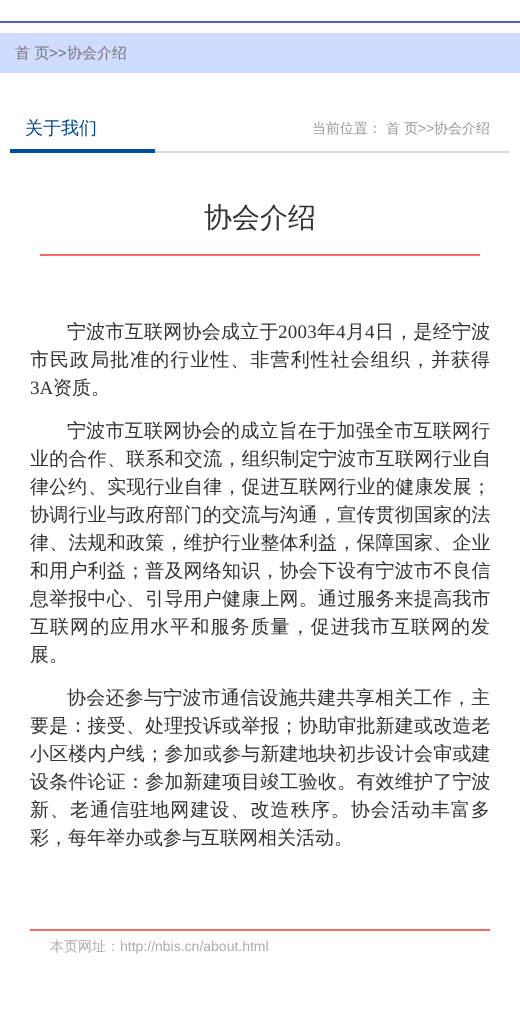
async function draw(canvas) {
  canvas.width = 520
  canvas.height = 1025
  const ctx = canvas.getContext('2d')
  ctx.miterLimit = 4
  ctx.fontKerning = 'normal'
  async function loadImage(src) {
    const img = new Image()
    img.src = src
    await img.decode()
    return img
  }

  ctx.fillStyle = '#fff'
  ctx.fillRect(0, 0, 520, 1025)
  ctx.fillStyle = '#4b67a6'
  ctx.fillRect(0, 21, 520, 2)
  ctx.fillStyle = '#d0dcff'
  ctx.fillRect(0, 33, 520, 40)
  ctx.font = '500 15px WenQuanYi Zen Hei'
  ctx.fillStyle = '#757575'
  ctx.fillText('首 页', 15, 58)
  ctx.font = '15px Liberation Sans'
  ctx.fillText('>>', 49, 58)
  ctx.font = '500 15px WenQuanYi Zen Hei'
  ctx.fillText('协会介绍', 67, 58)
  ctx.drawImage(await loadImage('image0.png'), 10, 149, 500, 4)
  ctx.font = '500 18px WenQuanYi Zen Hei'
  ctx.fillStyle = '#004788'
  ctx.fillText('关于我们', 25, 134)
  ctx.font = '500 14px WenQuanYi Zen Hei'
  ctx.fillStyle = '#999'
  ctx.fillText('当前位置：', 312, 133)
  ctx.fillText('首 页', 386, 133)
  ctx.font = '14px Liberation Sans'
  ctx.fillText('>>', 418, 133)
  ctx.font = '500 14px WenQuanYi Zen Hei'
  ctx.fillText('协会介绍', 434, 133)
  ctx.font = '500 28px WenQuanYi Zen Hei'
  ctx.fillStyle = '#333'
  ctx.fillText('协会介绍', 204, 227)
  ctx.fillStyle = '#ff6767'
  ctx.fillRect(40, 254, 440, 2)
  ctx.fillRect(30, 929, 460, 2)
  ctx.letterSpacing = '0.25px'
  ctx.font = '500 19px WenQuanYi Zen Hei'
  ctx.fillStyle = '#333'
  ctx.fillText('宁波市互联网协会成立于', 67, 338)
  ctx.font = '19px Liberation Serif'
  ctx.fillText('2003', 278, 338)
  ctx.font = '500 19px WenQuanYi Zen Hei'
  ctx.fillText('年', 317, 338)
  ctx.font = '19px Liberation Serif'
  ctx.fillText('4', 336, 338)
  ctx.font = '500 19px WenQuanYi Zen Hei'
  ctx.fillText('月', 346, 338)
  ctx.font = '19px Liberation Serif'
  ctx.fillText('4', 365, 338)
  ctx.font = '500 19px WenQuanYi Zen Hei'
  ctx.fillText('日，是经宁波', 375, 338)
  ctx.letterSpacing = '1.05px'
  ctx.fillText('市民政局批准的行业性、非营利性社会组织，并获得', 30, 366)
  ctx.letterSpacing = '0px'
  ctx.font = '19px Liberation Serif'
  ctx.fillText('3A', 30, 394)
  ctx.font = '500 19px WenQuanYi Zen Hei'
  ctx.fillText('资质。', 53, 394)
  ctx.letterSpacing = '0.25px'
  ctx.fillText('宁波市互联网协会的成立旨在于加强全市互联网行', 67, 437)
  ctx.fillText('业的合作、联系和交流，组织制定', 30, 465)
  ctx.fillText('宁波市互联网行业自', 318, 465)
  ctx.letterSpacing = '0px'
  ctx.fillText('律公约', 30, 493)
  ctx.letterSpacing = '0.2px'
  ctx.fillText('、实现行业自律，促进互联网行业的健康发展；', 88, 493)
  ctx.fillText('协调行业与政府部门的交流与沟通，宣传贯彻国家的法', 30, 521)
  ctx.fillText('律、法规和政策，维护行业整体利益，保障国家、企业', 30, 549)
  ctx.fillText('和用户利益；普及网络知识，协会下设有宁波市不良信', 30, 577)
  ctx.fillText('息举报中心、引导用户健康上网。通过服务来提高我市', 30, 605)
  ctx.letterSpacing = '1.05px'
  ctx.fillText('互联网的应用水平和服务质量，促进我市互联网的发', 30, 633)
  ctx.letterSpacing = '0px'
  ctx.fillText('展。', 30, 661)
  ctx.letterSpacing = '0.25px'
  ctx.fillText('协会还参与宁波市通信设施共建共享相关工作，主', 67, 704)
  ctx.letterSpacing = '0.2px'
  ctx.fillText('要是：接受、处理投诉或举报；协助审批新建或改造老', 30, 732)
  ctx.fillText('小区楼内户线；参加或参与新建地块初步设计会审或建', 30, 760)
  ctx.fillText('设条件论证：参加新建项目竣工验收。有效维护了宁波', 30, 788)
  ctx.letterSpacing = '1.05px'
  ctx.fillText('新、老通信驻地网建设、改造秩序。协会活动丰富多', 30, 816)
  ctx.letterSpacing = '0px'
  ctx.fillText('彩，每年举办或参与互联网相关活动。', 30, 844)
  ctx.font = '500 14px WenQuanYi Zen Hei'
  ctx.fillStyle = '#aeaeae'
  ctx.fillText('本页网址：', 50, 951)
  ctx.font = '14px Liberation Sans'
  ctx.fillText('http://nbis.cn/about.html', 120, 951)
}

draw(document.querySelector('canvas'))
